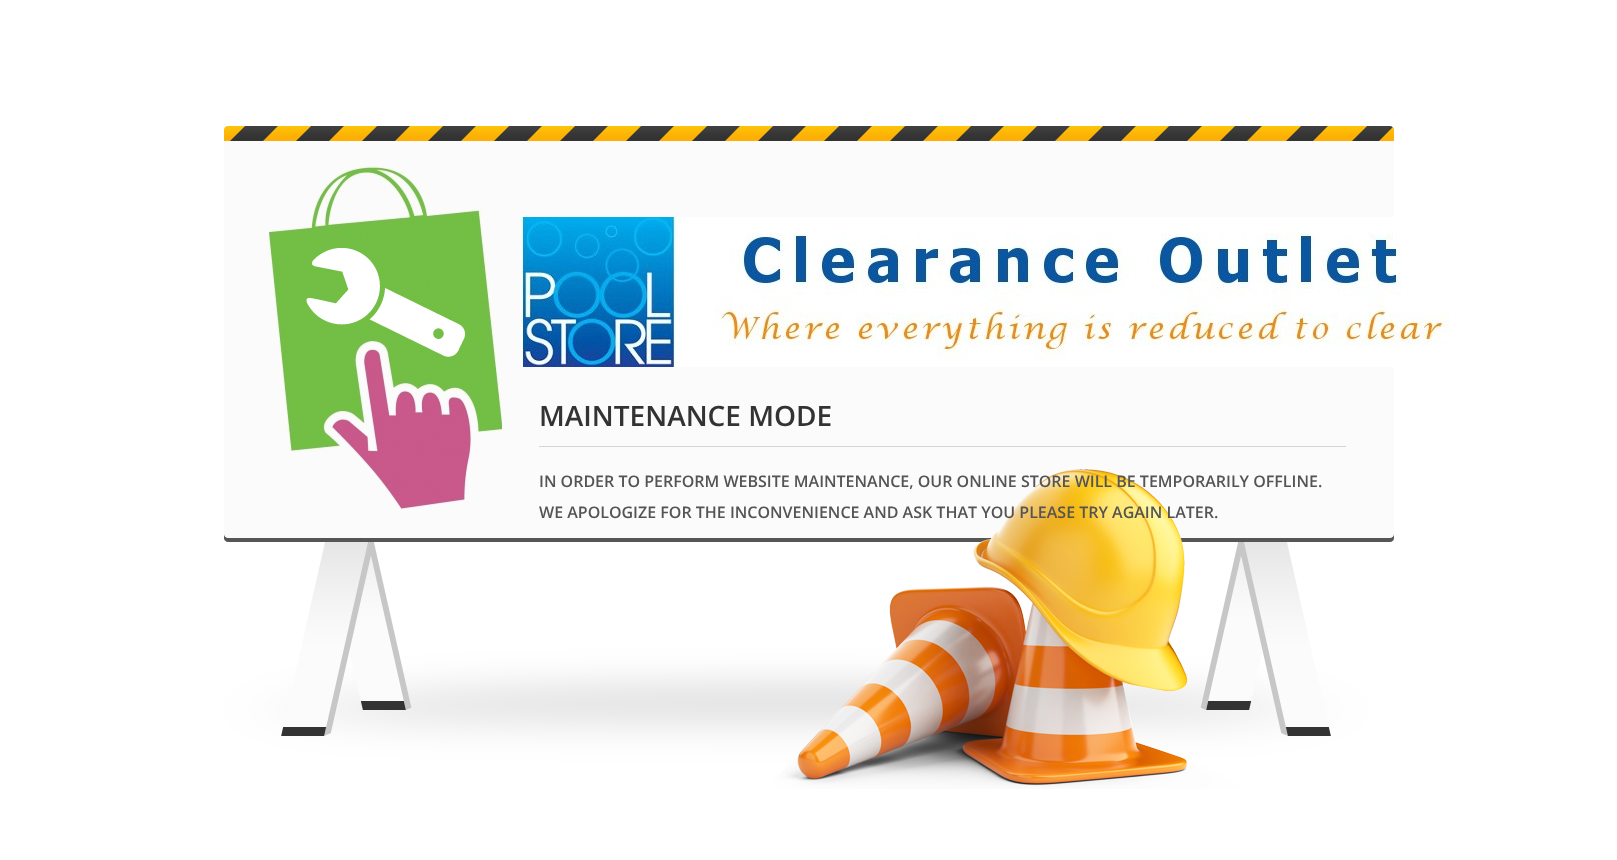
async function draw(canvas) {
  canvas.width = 1617
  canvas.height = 860
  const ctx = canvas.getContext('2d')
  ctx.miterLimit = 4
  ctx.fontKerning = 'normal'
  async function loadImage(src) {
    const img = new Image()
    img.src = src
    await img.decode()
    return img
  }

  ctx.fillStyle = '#fff'
  ctx.fillRect(0, 0, 1617, 860)
  ctx.drawImage(await loadImage('image0.png'), 224, 126, 1170, 663)
  ctx.drawImage(await loadImage('image1.png'), 521, 217, 928, 150)
  ctx.fillStyle = '#d6d4d4'
  ctx.fillRect(539, 446, 807, 1)
  ctx.font = '600 28px Open Sans'
  ctx.fillStyle = '#333'
  ctx.fillText('MAINTENANCE MODE', 539, 426)
  ctx.font = '600 16px Open Sans'
  ctx.fillStyle = '#555454'
  ctx.fillText('IN ORDER TO PERFORM WEBSITE MAINTENANCE, OUR ONLINE STORE WILL BE TEMPORARILY OFFLINE.', 539, 487)
  ctx.fillText('WE APOLOGIZE FOR THE INCONVENIENCE AND ASK THAT YOU PLEASE TRY AGAIN LATER.', 539, 518)
}

draw(document.querySelector('canvas'))
